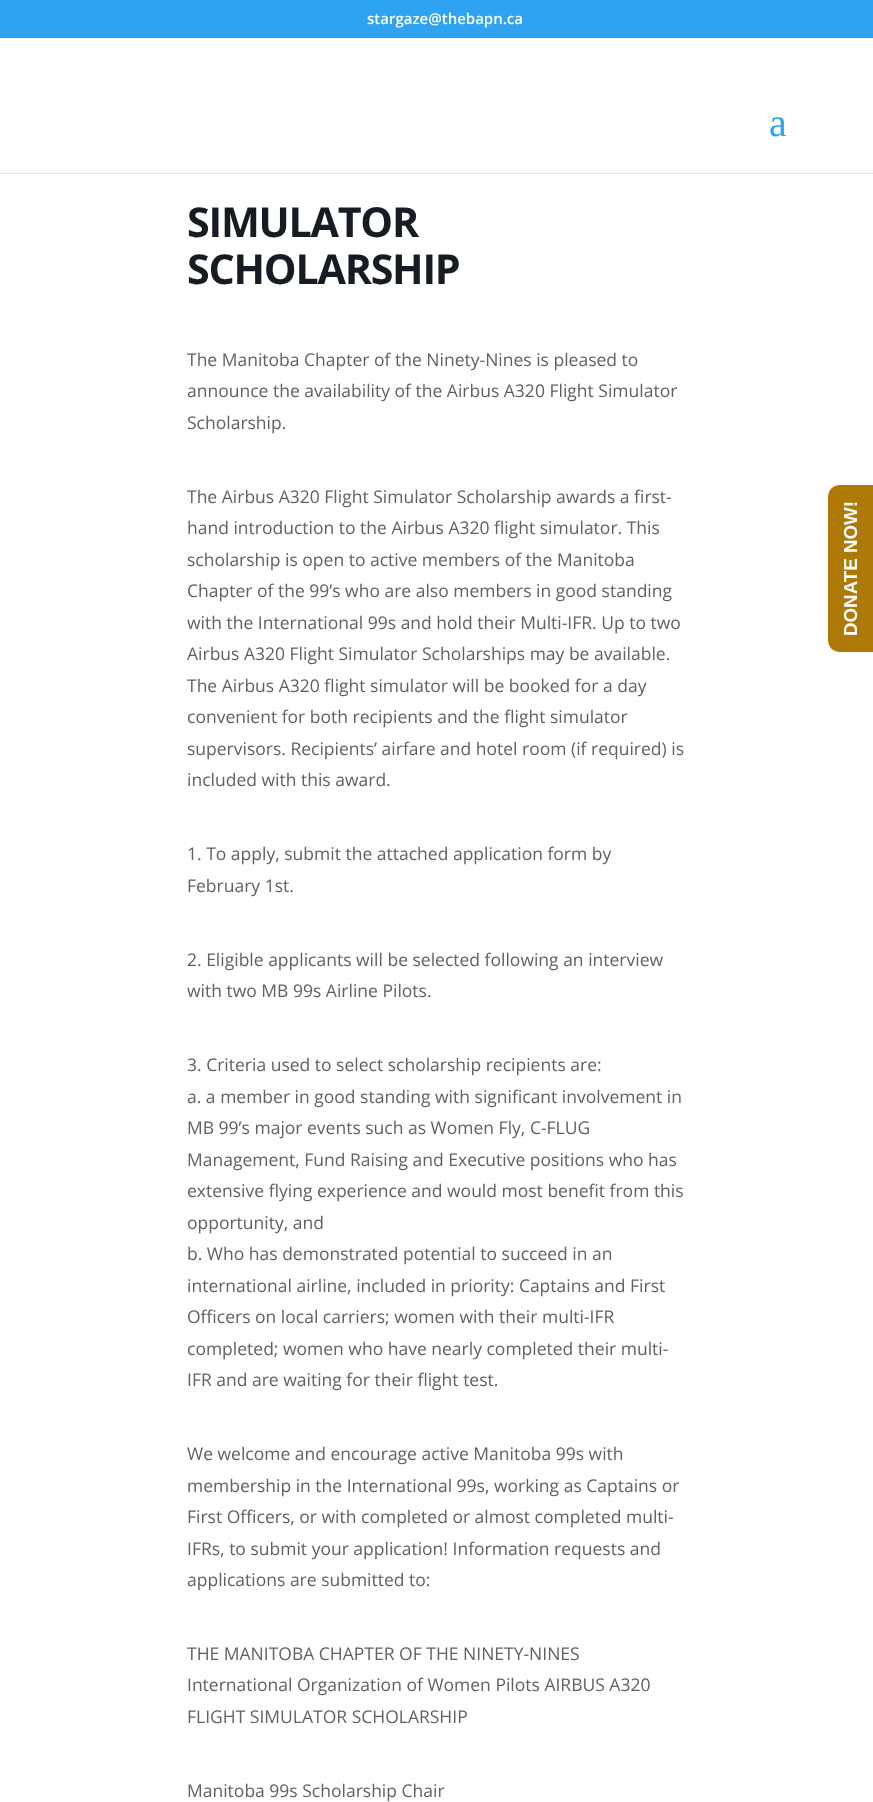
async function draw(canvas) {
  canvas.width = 873
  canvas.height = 1802
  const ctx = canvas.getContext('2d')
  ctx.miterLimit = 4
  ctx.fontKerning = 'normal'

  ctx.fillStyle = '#fff'
  ctx.fillRect(0, 0, 873, 1802)
  ctx.fillStyle = '#2ea3f2'
  ctx.fillRect(0, 0, 873, 38)
  ctx.font = '600 15px Open Sans'
  ctx.fillStyle = '#fff'
  ctx.fillText('stargaze@thebapn.ca', 367, 24)
  ctx.fillStyle = '#0000001a'
  ctx.beginPath()
  ctx.moveTo(0, 172)
  ctx.lineTo(0, 174)
  ctx.lineTo(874, 174)
  ctx.lineTo(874, 74)
  ctx.lineTo(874, 172)
  ctx.closePath()
  ctx.fill()
  ctx.fillStyle = '#fff'
  ctx.fillRect(0, 172, 873, 1)
  ctx.font = '40px Liberation Serif'
  ctx.fillStyle = '#2ea3f2'
  ctx.fillText('a', 769, 136)
  ctx.letterSpacing = '-1.25px'
  ctx.font = 'bold 41.25px Open Sans'
  ctx.fillStyle = '#171c24'
  ctx.fillText('SIMULATOR', 187, 237)
  ctx.fillText('SCHOLARSHIP', 187, 284)
  ctx.letterSpacing = '0px'
  ctx.font = '17.5px Open Sans'
  ctx.fillStyle = '#616161'
  ctx.fillText('The Manitoba Chapter of the Ninety-Nines is pleased to', 187, 366)
  ctx.fillText('announce the availability of the Airbus A320 Flight Simulator', 187, 397)
  ctx.fillText('Scholarship.', 187, 429)
  ctx.fillText('The Airbus A320 Flight Simulator Scholarship awards a first-', 187, 503)
  ctx.fillText('hand introduction to the Airbus A320 flight simulator. This', 187, 534)
  ctx.fillText('scholarship is open to active members of the Manitoba', 187, 566)
  ctx.fillText('Chapter of the 99’s who are also members in good standing', 187, 597)
  ctx.fillText('with the International 99s and hold their Multi-IFR. Up to two', 187, 629)
  ctx.fillText('Airbus A320 Flight Simulator Scholarships may be available.', 187, 660)
  ctx.fillText('The Airbus A320 flight simulator will be booked for a day', 187, 692)
  ctx.fillText('convenient for both recipients and the flight simulator', 187, 723)
  ctx.fillText('supervisors. Recipients’ airfare and hotel room (if required) is', 187, 755)
  ctx.fillText('included with this award.', 187, 786)
  ctx.fillText('1. To apply, submit the attached application form by', 187, 860)
  ctx.fillText('February 1st.', 187, 892)
  ctx.fillText('2. Eligible applicants will be selected following an interview', 187, 966)
  ctx.fillText('with two MB 99s Airline Pilots.', 187, 997)
  ctx.fillText('3. Criteria used to select scholarship recipients are:', 187, 1071)
  ctx.fillText('a. a member in good standing with significant involvement in', 187, 1103)
  ctx.fillText('MB 99’s major events such as Women Fly, C-FLUG', 187, 1134)
  ctx.fillText('Management, Fund Raising and Executive positions who has', 187, 1166)
  ctx.fillText('extensive flying experience and would most benefit from this', 187, 1197)
  ctx.fillText('opportunity, and', 187, 1229)
  ctx.fillText('b. Who has demonstrated potential to succeed in an', 187, 1260)
  ctx.fillText('international airline, included in priority: Captains and First', 187, 1292)
  ctx.fillText('Officers on local carriers; women with their multi-IFR', 187, 1323)
  ctx.fillText('completed; women who have nearly completed their multi-', 187, 1355)
  ctx.fillText('IFR and are waiting for their flight test.', 187, 1386)
  ctx.fillText('We welcome and encourage active Manitoba 99s with', 187, 1460)
  ctx.fillText('membership in the International 99s, working as Captains or', 187, 1492)
  ctx.fillText('First Officers, or with completed or almost completed multi-', 187, 1523)
  ctx.fillText('IFRs, to submit your application! Information requests and', 187, 1555)
  ctx.fillText('applications are submitted to:', 187, 1586)
  ctx.fillText('THE MANITOBA CHAPTER OF THE NINETY-NINES', 187, 1660)
  ctx.fillText('International Organization of Women Pilots AIRBUS A320', 187, 1691)
  ctx.fillText('FLIGHT SIMULATOR SCHOLARSHIP', 187, 1723)
  ctx.fillText('Manitoba 99s Scholarship Chair', 187, 1797)
  ctx.fillStyle = '#ae7907'
  ctx.beginPath()
  ctx.moveTo(828, 640)
  ctx.lineTo(828, 497)
  ctx.bezierCurveTo(828, 490, 833, 485, 840, 485)
  ctx.lineTo(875, 485)
  ctx.lineTo(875, 652)
  ctx.lineTo(840, 652)
  ctx.bezierCurveTo(833, 652, 828, 647, 828, 640)
  ctx.closePath()
  ctx.fill()
  ctx.font = 'bold 18.75px Liberation Sans'
  ctx.fillStyle = '#fff'
  ctx.save()
  ctx.translate(857, 636)
  ctx.rotate(-90 * Math.PI / 180)
  ctx.fillText('DONATE NOW!', 0, 0)
  ctx.restore()
}

draw(document.querySelector('canvas'))
